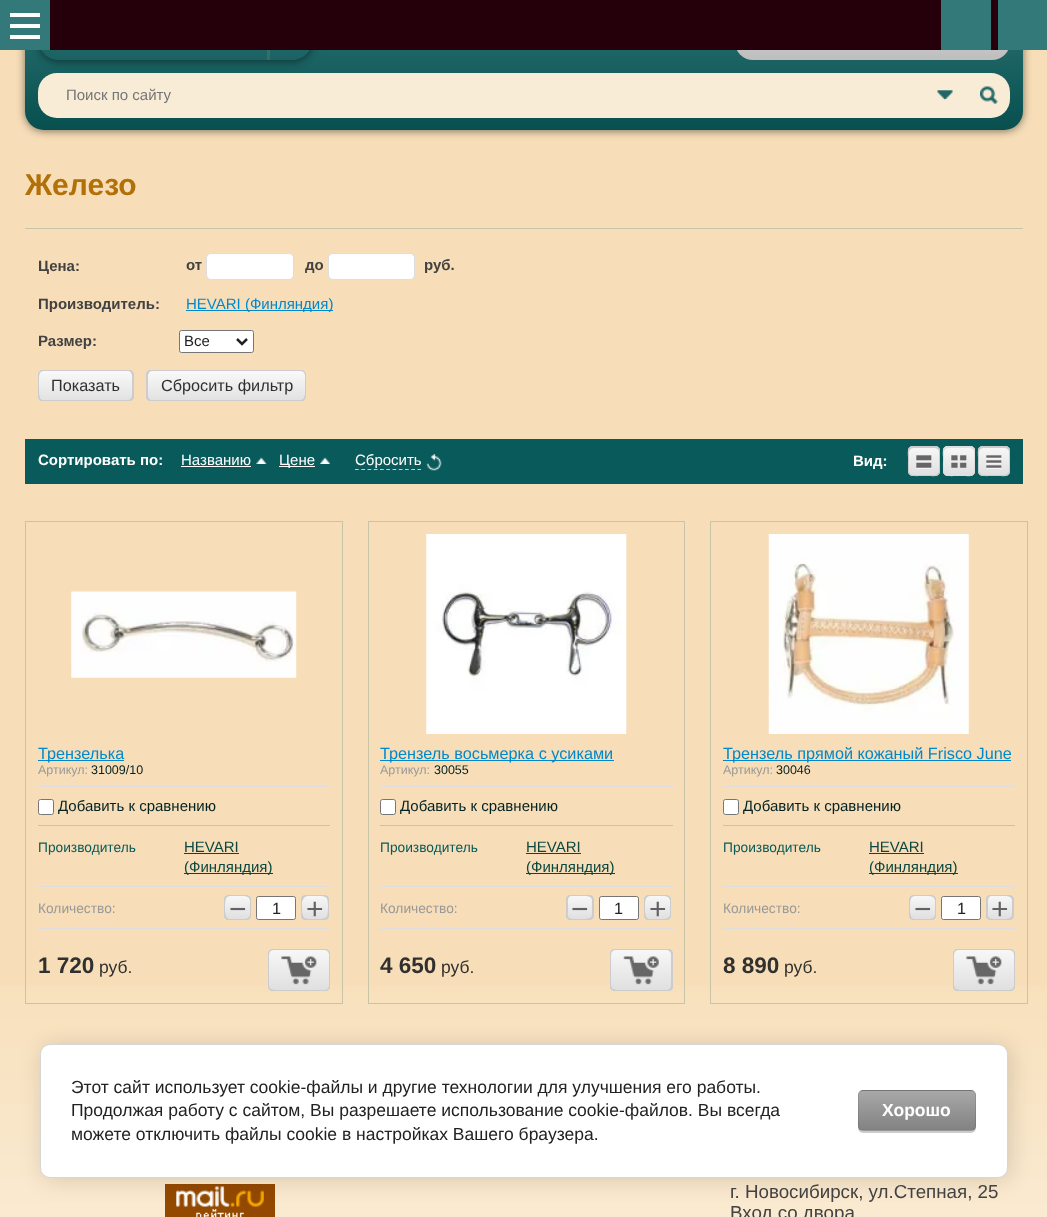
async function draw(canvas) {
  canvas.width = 1047
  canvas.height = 1217
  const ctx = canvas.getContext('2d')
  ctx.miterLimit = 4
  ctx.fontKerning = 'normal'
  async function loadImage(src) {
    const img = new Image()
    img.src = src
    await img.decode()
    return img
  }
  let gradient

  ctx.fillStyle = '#f7deb8'
  ctx.fillRect(0, 0, 1047, 1217)
  ctx.fillStyle = '#00000080'
  ctx.filter = 'blur(4px)'
  ctx.beginPath()
  ctx.roundRect(25, -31, 998, 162, 19)
  ctx.fill()
  ctx.filter = 'none'
  gradient = ctx.createLinearGradient(524, -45, 524, 130)
  gradient.addColorStop(0, '#387e7e')
  gradient.addColorStop(1, '#084f4f')
  ctx.fillStyle = gradient
  ctx.beginPath()
  ctx.roundRect(25, -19, 998, 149, 19)
  ctx.fill()
  gradient = ctx.createLinearGradient(524, -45, 524, 130)
  gradient.addColorStop(0, '#48807c')
  gradient.addColorStop(1, '#265f5b')
  ctx.fillStyle = gradient
  ctx.fillRect(267, 50, 3, 10)
  ctx.fillStyle = '#f9ecd7'
  ctx.beginPath()
  ctx.roundRect(38, 73, 972, 45, 19)
  ctx.fill()
  ctx.save()
  ctx.beginPath()
  ctx.moveTo(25, 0)
  ctx.lineTo(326, 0)
  ctx.lineTo(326, 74)
  ctx.lineTo(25, 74)
  ctx.closePath()
  ctx.moveTo(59, -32)
  ctx.lineTo(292, -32)
  ctx.bezierCurveTo(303.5, -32, 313, -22.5, 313, -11)
  ctx.lineTo(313, 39)
  ctx.bezierCurveTo(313, 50.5, 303.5, 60, 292, 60)
  ctx.lineTo(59, 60)
  ctx.bezierCurveTo(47.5, 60, 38, 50.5, 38, 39)
  ctx.lineTo(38, -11)
  ctx.bezierCurveTo(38, -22.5, 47.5, -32, 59, -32)
  ctx.closePath()
  ctx.clip('evenodd')
  ctx.fillStyle = '#00000080'
  ctx.filter = 'blur(4px)'
  ctx.beginPath()
  ctx.roundRect(38, -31, 275, 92, 21)
  ctx.fill()
  ctx.filter = 'none'
  ctx.restore()
  ctx.fillStyle = '#337979'
  ctx.fillRect(0, 0, 50, 50)
  ctx.fillStyle = '#fff'
  ctx.fillRect(10, 13, 30, 4)
  ctx.fillRect(10, 35, 30, 4)
  ctx.fillRect(10, 24, 30, 4)
  gradient = ctx.createLinearGradient(873, -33, 873, 60)
  gradient.addColorStop(0, '#eee')
  gradient.addColorStop(1, '#bebebe')
  ctx.fillStyle = gradient
  ctx.beginPath()
  ctx.roundRect(735, -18, 275, 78, 18)
  ctx.fill()
  ctx.fillStyle = '#25000b'
  ctx.fillRect(50, 0, 948, 50)
  ctx.fillStyle = '#337979'
  ctx.fillRect(941, 0, 50, 50)
  ctx.fillRect(998, 0, 49, 50)
  ctx.font = '15px Liberation Sans'
  ctx.fillStyle = '#757575'
  ctx.fillText('Поиск по сайту', 66, 100)
  ctx.drawImage(await loadImage('image0.png'), 980, 86, 18, 18)
  ctx.drawImage(await loadImage('image1.png'), 937, 90, 16, 10)
  ctx.font = 'bold 30px Liberation Sans'
  ctx.fillStyle = '#b17008'
  ctx.fillText('Железо', 25, 195)
  ctx.fillStyle = '#c7c4a8'
  ctx.fillRect(25, 228, 998, 1)
  ctx.font = 'bold 15px Liberation Sans'
  ctx.fillStyle = '#424242'
  ctx.fillText('Цена:', 38, 271)
  ctx.fillText('от', 186, 270)
  ctx.fillStyle = '#fff'
  ctx.beginPath()
  ctx.roundRect(206.5, 253.5, 87, 26, 4.5)
  ctx.fill()
  ctx.strokeStyle = '#dedede'
  ctx.stroke()
  ctx.fillStyle = '#424242'
  ctx.fillText('до', 305, 270)
  ctx.fillStyle = '#fff'
  ctx.beginPath()
  ctx.roundRect(328.5, 253.5, 86, 26, 4.5)
  ctx.fill()
  ctx.stroke()
  ctx.fillStyle = '#424242'
  ctx.fillText('руб.', 424, 270)
  ctx.fillText('Производитель:', 38, 309)
  ctx.fillStyle = '#08c'
  ctx.fillRect(186, 310, 147, 1)
  ctx.font = '15px Liberation Sans'
  ctx.fillText('HEVARI (Финляндия)', 186, 309)
  ctx.font = 'bold 15px Liberation Sans'
  ctx.fillStyle = '#424242'
  ctx.fillText('Размер:', 38, 346)
  ctx.fillStyle = '#fff'
  ctx.beginPath()
  ctx.roundRect(179.5, 330.5, 74, 22, 2)
  ctx.fill()
  ctx.strokeStyle = '#767676'
  ctx.stroke()
  ctx.beginPath()
  ctx.moveTo(237, 339)
  ctx.lineTo(242, 344)
  ctx.lineTo(247, 339)
  ctx.strokeStyle = '#222'
  ctx.lineWidth = 2.5
  ctx.stroke()
  ctx.font = '15px Liberation Sans'
  ctx.fillStyle = '#222'
  ctx.fillText('Все', 184, 346)
  gradient = ctx.createLinearGradient(86, 370, 86, 401)
  gradient.addColorStop(0, '#fafafa')
  gradient.addColorStop(1, '#e1e1e1')
  ctx.fillStyle = gradient
  ctx.beginPath()
  ctx.roundRect(38, 370, 96, 31, 5)
  ctx.fill()
  ctx.fillStyle = '#cdcdcd'
  ctx.beginPath()
  ctx.moveTo(40, 371)
  ctx.bezierCurveTo(39, 372, 38, 374, 38, 375)
  ctx.lineTo(38, 396)
  ctx.bezierCurveTo(38, 399, 40, 401, 43, 401)
  ctx.lineTo(129, 401)
  ctx.bezierCurveTo(130, 401, 132, 400, 133, 399)
  ctx.lineTo(130, 400)
  ctx.lineTo(58, 400)
  ctx.bezierCurveTo(41, 400, 39, 404, 39, 388)
  ctx.bezierCurveTo(39, 384, 38, 374, 40, 371)
  ctx.closePath()
  ctx.fill()
  ctx.beginPath()
  ctx.moveTo(41, 371)
  ctx.lineTo(128, 371)
  ctx.bezierCurveTo(130, 371, 132, 373, 132, 376)
  ctx.lineTo(132, 398)
  ctx.bezierCurveTo(132, 399, 132, 400, 131, 401)
  ctx.bezierCurveTo(133, 400, 134, 398, 134, 396)
  ctx.lineTo(134, 375)
  ctx.bezierCurveTo(134, 372, 132, 370, 129, 370)
  ctx.lineTo(43, 370)
  ctx.bezierCurveTo(42, 370, 41, 370, 40, 371)
  ctx.closePath()
  ctx.fill()
  ctx.beginPath()
  ctx.moveTo(40, 400)
  ctx.bezierCurveTo(41, 401, 42, 401, 43, 401)
  ctx.lineTo(129, 401)
  ctx.bezierCurveTo(132, 401, 134, 399, 134, 396)
  ctx.lineTo(134, 375)
  ctx.bezierCurveTo(134, 373, 133, 371, 131, 370)
  ctx.bezierCurveTo(133, 373, 132, 381, 132, 384)
  ctx.bezierCurveTo(132, 388, 134, 400, 128, 400)
  ctx.closePath()
  ctx.fill()
  ctx.beginPath()
  ctx.moveTo(44, 371)
  ctx.lineTo(130, 371)
  ctx.lineTo(133, 372)
  ctx.bezierCurveTo(132, 371, 130, 370, 129, 370)
  ctx.lineTo(43, 370)
  ctx.bezierCurveTo(40, 370, 38, 372, 38, 375)
  ctx.lineTo(38, 396)
  ctx.bezierCurveTo(38, 397, 38, 398, 39, 399)
  ctx.lineTo(39, 380)
  ctx.bezierCurveTo(39, 376, 39, 371, 44, 371)
  ctx.closePath()
  ctx.fill()
  ctx.font = '16.25px Liberation Sans'
  ctx.fillStyle = '#303030'
  ctx.fillText('Показать', 51, 391)
  gradient = ctx.createLinearGradient(226, 370, 226, 401)
  gradient.addColorStop(0, '#fafafa')
  gradient.addColorStop(1, '#e1e1e1')
  ctx.fillStyle = gradient
  ctx.beginPath()
  ctx.roundRect(146, 370, 160, 31, 5)
  ctx.fill()
  ctx.fillStyle = '#cdcdcd'
  ctx.beginPath()
  ctx.moveTo(149, 370)
  ctx.bezierCurveTo(147, 371, 146, 373, 146, 375)
  ctx.lineTo(146, 396)
  ctx.bezierCurveTo(146, 399, 148, 401, 151, 401)
  ctx.lineTo(301, 401)
  ctx.bezierCurveTo(302, 401, 304, 400, 305, 400)
  ctx.lineTo(302, 400)
  ctx.lineTo(152, 400)
  ctx.bezierCurveTo(150, 400, 148, 398, 148, 395)
  ctx.lineTo(148, 374)
  ctx.bezierCurveTo(148, 372, 149, 371, 149, 370)
  ctx.closePath()
  ctx.fill()
  ctx.beginPath()
  ctx.moveTo(150, 371)
  ctx.lineTo(300, 371)
  ctx.bezierCurveTo(307, 371, 305, 379, 305, 383)
  ctx.lineTo(305, 399)
  ctx.bezierCurveTo(306, 398, 306, 397, 306, 396)
  ctx.lineTo(306, 375)
  ctx.bezierCurveTo(306, 372, 304, 370, 301, 370)
  ctx.lineTo(151, 370)
  ctx.bezierCurveTo(150, 370, 148, 371, 147, 372)
  ctx.closePath()
  ctx.fill()
  ctx.beginPath()
  ctx.moveTo(147, 399)
  ctx.bezierCurveTo(148, 400, 150, 401, 151, 401)
  ctx.lineTo(301, 401)
  ctx.bezierCurveTo(304, 401, 306, 399, 306, 396)
  ctx.lineTo(306, 375)
  ctx.bezierCurveTo(306, 374, 305, 372, 304, 371)
  ctx.bezierCurveTo(306, 374, 305, 384, 305, 388)
  ctx.bezierCurveTo(305, 392, 306, 400, 300, 400)
  ctx.lineTo(149, 400)
  ctx.closePath()
  ctx.fill()
  ctx.beginPath()
  ctx.moveTo(152, 371)
  ctx.lineTo(302, 371)
  ctx.lineTo(305, 371)
  ctx.bezierCurveTo(304, 371, 302, 370, 301, 370)
  ctx.lineTo(151, 370)
  ctx.bezierCurveTo(148, 370, 146, 372, 146, 375)
  ctx.lineTo(146, 396)
  ctx.bezierCurveTo(146, 398, 147, 400, 149, 401)
  ctx.bezierCurveTo(147, 398, 148, 390, 148, 387)
  ctx.bezierCurveTo(148, 384, 146, 371, 152, 371)
  ctx.closePath()
  ctx.fill()
  ctx.fillStyle = '#303030'
  ctx.fillText('Сбросить фильтр', 161, 391)
  ctx.fillStyle = '#095a5a'
  ctx.fillRect(25, 439, 998, 45)
  ctx.font = 'bold 15px Liberation Sans'
  ctx.fillStyle = '#fff'
  ctx.fillText('Сортировать по:', 38, 465)
  ctx.font = '15px Liberation Sans'
  ctx.fillText('Названию', 181, 465)
  ctx.fillRect(181, 466, 70, 1)
  ctx.drawImage(await loadImage('image2.png'), 256, 457, 11, 7)
  ctx.fillRect(279, 466, 36, 1)
  ctx.fillText('Цене', 279, 465)
  ctx.drawImage(await loadImage('image3.png'), 320, 457, 10, 7)
  ctx.beginPath()
  ctx.moveTo(355, 469.5)
  ctx.lineTo(421, 469.5)
  ctx.strokeStyle = '#ccc'
  ctx.lineWidth = 1.2
  ctx.setLineDash([3.75, 2.5])
  ctx.stroke()
  ctx.fillText('Сбросить', 355, 465)
  ctx.drawImage(await loadImage('image4.png'), 426, 454, 16, 17)
  ctx.font = 'bold 15px Liberation Sans'
  ctx.fillText('Вид:', 853, 466)
  gradient = ctx.createLinearGradient(924, 446, 924, 476)
  gradient.addColorStop(0, '#f8f8f8')
  gradient.addColorStop(1, '#dfdfdf')
  ctx.fillStyle = gradient
  ctx.beginPath()
  ctx.roundRect(908, 446, 32, 30, 5)
  ctx.fill()
  ctx.fillStyle = '#ccc'
  ctx.beginPath()
  ctx.moveTo(909.5, 447)
  ctx.bezierCurveTo(907, 449.5, 908, 454.5, 908, 457.5)
  ctx.bezierCurveTo(908, 479, 906, 476, 927.5, 476)
  ctx.bezierCurveTo(931, 476, 936, 477, 939, 474.5)
  ctx.bezierCurveTo(938, 475, 937, 475, 936, 475)
  ctx.lineTo(914, 475)
  ctx.bezierCurveTo(911, 475, 909, 473, 909, 470)
  ctx.lineTo(909, 450)
  ctx.bezierCurveTo(909, 449, 909, 448, 909.5, 447)
  ctx.closePath()
  ctx.fill()
  ctx.beginPath()
  ctx.moveTo(911, 448)
  ctx.lineTo(934, 448)
  ctx.bezierCurveTo(937, 448, 939, 450, 939, 452)
  ctx.lineTo(939, 472)
  ctx.lineTo(938.5, 474.5)
  ctx.bezierCurveTo(939.5, 473.5, 940, 472.5, 940, 471)
  ctx.lineTo(940, 451)
  ctx.bezierCurveTo(940, 448, 938, 446, 935, 446)
  ctx.lineTo(913, 446)
  ctx.bezierCurveTo(911, 446, 909.5, 447, 908.5, 448.5)
  ctx.closePath()
  ctx.fill()
  ctx.beginPath()
  ctx.moveTo(910, 475)
  ctx.bezierCurveTo(910.5, 475.5, 912, 476, 913, 476)
  ctx.lineTo(935, 476)
  ctx.bezierCurveTo(938, 476, 940, 474, 940, 471)
  ctx.lineTo(940, 451)
  ctx.bezierCurveTo(940, 449.5, 939.5, 448, 938.5, 447)
  ctx.bezierCurveTo(939.5, 449, 939, 451.5, 939, 453.5)
  ctx.lineTo(939, 466.5)
  ctx.bezierCurveTo(939, 470, 939.5, 474, 935, 475)
  ctx.closePath()
  ctx.fill()
  ctx.beginPath()
  ctx.moveTo(914, 448)
  ctx.lineTo(936, 448)
  ctx.bezierCurveTo(937.5, 448, 939, 448.5, 939.5, 449.5)
  ctx.bezierCurveTo(939, 447.5, 937, 446, 935, 446)
  ctx.lineTo(913, 446)
  ctx.bezierCurveTo(910, 446, 908, 448, 908, 451)
  ctx.lineTo(908, 471)
  ctx.bezierCurveTo(908, 472.5, 908.5, 473.5, 909.5, 474.5)
  ctx.lineTo(909, 472)
  ctx.lineTo(909, 452)
  ctx.bezierCurveTo(909, 450, 911, 448, 914, 448)
  ctx.closePath()
  ctx.fill()
  ctx.drawImage(await loadImage('image5.png'), 916, 455, 16, 14)
  gradient = ctx.createLinearGradient(959, 446, 959, 476)
  gradient.addColorStop(0, '#f8f8f8')
  gradient.addColorStop(1, '#dfdfdf')
  ctx.fillStyle = gradient
  ctx.beginPath()
  ctx.roundRect(943, 446, 32, 30, 5)
  ctx.fill()
  ctx.fillStyle = '#dedede'
  ctx.beginPath()
  ctx.moveTo(944.5, 447)
  ctx.bezierCurveTo(942, 449.5, 943, 454.5, 943, 457.5)
  ctx.bezierCurveTo(943, 479, 941, 476, 962.5, 476)
  ctx.bezierCurveTo(966, 476, 971, 477, 974, 474.5)
  ctx.bezierCurveTo(973, 475, 972, 475, 971, 475)
  ctx.lineTo(949, 475)
  ctx.bezierCurveTo(946, 475, 944, 473, 944, 470)
  ctx.lineTo(944, 450)
  ctx.bezierCurveTo(944, 449, 944, 448, 944.5, 447)
  ctx.closePath()
  ctx.fill()
  ctx.beginPath()
  ctx.moveTo(946, 448)
  ctx.lineTo(969, 448)
  ctx.bezierCurveTo(972, 448, 974, 450, 974, 452)
  ctx.lineTo(974, 472)
  ctx.lineTo(973.5, 474.5)
  ctx.bezierCurveTo(974.5, 473.5, 975, 472.5, 975, 471)
  ctx.lineTo(975, 451)
  ctx.bezierCurveTo(975, 448, 973, 446, 970, 446)
  ctx.lineTo(948, 446)
  ctx.bezierCurveTo(946, 446, 944.5, 447, 943.5, 448.5)
  ctx.closePath()
  ctx.fill()
  ctx.beginPath()
  ctx.moveTo(945, 475)
  ctx.bezierCurveTo(945.5, 475.5, 947, 476, 948, 476)
  ctx.lineTo(970, 476)
  ctx.bezierCurveTo(973, 476, 975, 474, 975, 471)
  ctx.lineTo(975, 451)
  ctx.bezierCurveTo(975, 449.5, 974.5, 448, 973.5, 447)
  ctx.bezierCurveTo(974.5, 449, 974, 451.5, 974, 453.5)
  ctx.lineTo(974, 466.5)
  ctx.bezierCurveTo(974, 470, 974.5, 474, 970, 475)
  ctx.closePath()
  ctx.fill()
  ctx.beginPath()
  ctx.moveTo(949, 448)
  ctx.lineTo(971, 448)
  ctx.bezierCurveTo(972.5, 448, 974, 448.5, 974.5, 449.5)
  ctx.bezierCurveTo(974, 447.5, 972, 446, 970, 446)
  ctx.lineTo(948, 446)
  ctx.bezierCurveTo(945, 446, 943, 448, 943, 451)
  ctx.lineTo(943, 471)
  ctx.bezierCurveTo(943, 472.5, 943.5, 473.5, 944.5, 474.5)
  ctx.lineTo(944, 472)
  ctx.lineTo(944, 452)
  ctx.bezierCurveTo(944, 450, 946, 448, 949, 448)
  ctx.closePath()
  ctx.fill()
  ctx.drawImage(await loadImage('image6.png'), 951, 455, 16, 13)
  gradient = ctx.createLinearGradient(994, 446, 994, 476)
  gradient.addColorStop(0, '#f8f8f8')
  gradient.addColorStop(1, '#dfdfdf')
  ctx.fillStyle = gradient
  ctx.beginPath()
  ctx.roundRect(978, 446, 32, 30, 5)
  ctx.fill()
  ctx.fillStyle = '#ccc'
  ctx.beginPath()
  ctx.moveTo(979.5, 447)
  ctx.bezierCurveTo(977, 449.5, 978, 454.5, 978, 457.5)
  ctx.bezierCurveTo(978, 479, 976, 476, 997.5, 476)
  ctx.bezierCurveTo(1001, 476, 1006, 477, 1009, 474.5)
  ctx.bezierCurveTo(1008, 475, 1007, 475, 1006, 475)
  ctx.lineTo(984, 475)
  ctx.bezierCurveTo(981, 475, 979, 473, 979, 470)
  ctx.lineTo(979, 450)
  ctx.bezierCurveTo(979, 449, 979, 448, 979.5, 447)
  ctx.closePath()
  ctx.fill()
  ctx.beginPath()
  ctx.moveTo(981, 448)
  ctx.lineTo(1004, 448)
  ctx.bezierCurveTo(1007, 448, 1009, 450, 1009, 452)
  ctx.lineTo(1009, 472)
  ctx.lineTo(1008.5, 474.5)
  ctx.bezierCurveTo(1009.5, 473.5, 1010, 472.5, 1010, 471)
  ctx.lineTo(1010, 451)
  ctx.bezierCurveTo(1010, 448, 1008, 446, 1005, 446)
  ctx.lineTo(983, 446)
  ctx.bezierCurveTo(981, 446, 979.5, 447, 978.5, 448.5)
  ctx.closePath()
  ctx.fill()
  ctx.beginPath()
  ctx.moveTo(980, 475)
  ctx.bezierCurveTo(980.5, 475.5, 982, 476, 983, 476)
  ctx.lineTo(1005, 476)
  ctx.bezierCurveTo(1008, 476, 1010, 474, 1010, 471)
  ctx.lineTo(1010, 451)
  ctx.bezierCurveTo(1010, 449.5, 1009.5, 448, 1008.5, 447)
  ctx.bezierCurveTo(1009.5, 449, 1009, 451.5, 1009, 453.5)
  ctx.lineTo(1009, 466.5)
  ctx.bezierCurveTo(1009, 470, 1009.5, 474, 1005, 475)
  ctx.closePath()
  ctx.fill()
  ctx.beginPath()
  ctx.moveTo(984, 448)
  ctx.lineTo(1006, 448)
  ctx.bezierCurveTo(1007.5, 448, 1009, 448.5, 1009.5, 449.5)
  ctx.bezierCurveTo(1009, 447.5, 1007, 446, 1005, 446)
  ctx.lineTo(983, 446)
  ctx.bezierCurveTo(980, 446, 978, 448, 978, 451)
  ctx.lineTo(978, 471)
  ctx.bezierCurveTo(978, 472.5, 978.5, 473.5, 979.5, 474.5)
  ctx.lineTo(979, 472)
  ctx.lineTo(979, 452)
  ctx.bezierCurveTo(979, 450, 981, 448, 984, 448)
  ctx.closePath()
  ctx.fill()
  ctx.drawImage(await loadImage('image7.png'), 986, 455, 16, 14)
  ctx.drawImage(await loadImage('image14.png'), 0, 985, 1047, 232)
  ctx.strokeStyle = '#c7c4a8'
  ctx.lineWidth = 1
  ctx.setLineDash([])
  ctx.strokeRect(25.5, 521.5, 317, 482)
  ctx.drawImage(await loadImage('image8.png'), 71, 591, 226, 87)
  ctx.fillStyle = '#08c'
  ctx.fillRect(38, 760, 86, 1)
  ctx.font = '16.25px Liberation Sans'
  ctx.fillText('Трензелька', 38, 759)
  ctx.font = '12.5px Liberation Sans'
  ctx.fillStyle = '#999'
  ctx.fillText('Артикул:', 38, 774)
  ctx.fillStyle = '#022121'
  ctx.fillText('31009/10', 91, 774)
  ctx.fillStyle = '#dedede'
  ctx.fillRect(38, 786, 292, 1)
  ctx.fillStyle = '#fff'
  ctx.beginPath()
  ctx.roundRect(38.5, 799.5, 15, 15, 2)
  ctx.fill()
  ctx.strokeStyle = '#767676'
  ctx.stroke()
  ctx.font = '15px Liberation Sans'
  ctx.fillStyle = '#022121'
  ctx.fillText('Добавить к сравнению', 58, 811)
  ctx.font = '13.75px Liberation Sans'
  ctx.fillStyle = '#095a5a'
  ctx.fillText('Производитель', 38, 852)
  ctx.fillStyle = '#c7c4a8'
  ctx.fillRect(38, 825, 292, 1)
  ctx.font = '15px Liberation Sans'
  ctx.fillStyle = '#0b4740'
  ctx.fillText('HEVARI', 184, 852)
  ctx.fillRect(184, 853, 55, 1)
  ctx.fillRect(184, 873, 89, 1)
  ctx.fillText('(Финляндия)', 184, 872)
  ctx.fillStyle = '#dedede'
  ctx.fillRect(38, 886, 292, 1)
  ctx.font = '13.75px Liberation Sans'
  ctx.fillStyle = '#999'
  ctx.fillText('Количество:', 38, 913)
  gradient = ctx.createLinearGradient(238, 895, 238, 920)
  gradient.addColorStop(0, '#f8f8f8')
  gradient.addColorStop(1, '#dfdfdf')
  ctx.fillStyle = gradient
  ctx.beginPath()
  ctx.roundRect(224, 895, 27, 25, 5)
  ctx.fill()
  ctx.fillStyle = '#ccc'
  ctx.beginPath()
  ctx.moveTo(226.5, 896)
  ctx.bezierCurveTo(225, 896.5, 224, 898, 224, 900)
  ctx.lineTo(224, 915)
  ctx.bezierCurveTo(224, 918, 226, 920, 229, 920)
  ctx.lineTo(246, 920)
  ctx.bezierCurveTo(247.5, 920, 249, 919, 250, 918)
  ctx.bezierCurveTo(247, 920, 240.5, 919, 237.5, 919)
  ctx.lineTo(230, 919)
  ctx.bezierCurveTo(228.5, 919, 228, 918.5, 227, 918)
  ctx.bezierCurveTo(225.5, 916.5, 225.5, 914.5, 225, 913)
  ctx.lineTo(225, 900)
  ctx.bezierCurveTo(225, 898.5, 225.5, 897, 226.5, 896)
  ctx.closePath()
  ctx.fill()
  ctx.beginPath()
  ctx.moveTo(228, 896)
  ctx.bezierCurveTo(232.5, 896, 245.5, 895, 248.5, 897.5)
  ctx.bezierCurveTo(249, 898, 249.5, 899, 250, 900)
  ctx.bezierCurveTo(250, 901, 250.5, 914, 250, 916)
  ctx.lineTo(249.5, 918.5)
  ctx.bezierCurveTo(250.5, 917.5, 251, 916.5, 251, 915)
  ctx.lineTo(251, 900)
  ctx.bezierCurveTo(251, 897, 249, 895, 246, 895)
  ctx.lineTo(229, 895)
  ctx.bezierCurveTo(227.5, 895, 226.5, 895.5, 225.5, 896.5)
  ctx.closePath()
  ctx.fill()
  ctx.beginPath()
  ctx.moveTo(225.5, 918.5)
  ctx.bezierCurveTo(226.5, 919.5, 227.5, 920, 229, 920)
  ctx.lineTo(246, 920)
  ctx.bezierCurveTo(249, 920, 251, 918, 251, 915)
  ctx.lineTo(251, 900)
  ctx.bezierCurveTo(251, 898.5, 250.5, 897.5, 249.5, 896.5)
  ctx.lineTo(250, 899)
  ctx.bezierCurveTo(250.5, 901, 250, 914, 250, 915)
  ctx.bezierCurveTo(249.5, 916, 249, 917, 248.5, 917.5)
  ctx.bezierCurveTo(247.5, 918.5, 246, 918.5, 245, 919)
  ctx.lineTo(235, 919)
  ctx.bezierCurveTo(232.5, 919, 228, 919.5, 225.5, 918.5)
  ctx.closePath()
  ctx.fill()
  ctx.beginPath()
  ctx.moveTo(230, 896)
  ctx.lineTo(245, 896)
  ctx.bezierCurveTo(247.5, 896, 249, 896.5, 250, 897)
  ctx.bezierCurveTo(249, 896, 247.5, 895, 246, 895)
  ctx.lineTo(229, 895)
  ctx.bezierCurveTo(226, 895, 224, 897, 224, 900)
  ctx.lineTo(224, 915)
  ctx.bezierCurveTo(224, 917, 225, 918.5, 226.5, 919)
  ctx.bezierCurveTo(224.5, 916.5, 224.5, 901, 226, 898.5)
  ctx.bezierCurveTo(227, 897, 228, 896, 230, 896)
  ctx.closePath()
  ctx.fill()
  ctx.font = '30px Liberation Sans'
  ctx.fillStyle = '#626262'
  ctx.fillText('−', 229, 919)
  ctx.fillStyle = '#fff'
  ctx.beginPath()
  ctx.roundRect(256.5, 896.5, 39, 23, 2)
  ctx.fill()
  ctx.stroke()
  ctx.font = '16.25px Liberation Sans'
  ctx.fillStyle = '#222'
  ctx.fillText('1', 272, 914)
  gradient = ctx.createLinearGradient(315, 895, 315, 920)
  gradient.addColorStop(0, '#f8f8f8')
  gradient.addColorStop(1, '#dfdfdf')
  ctx.fillStyle = gradient
  ctx.beginPath()
  ctx.roundRect(301, 895, 28, 25, 5)
  ctx.fill()
  ctx.fillStyle = '#ccc'
  ctx.beginPath()
  ctx.moveTo(304, 895.5)
  ctx.bezierCurveTo(302, 896, 301, 898, 301, 900)
  ctx.lineTo(301, 915)
  ctx.bezierCurveTo(301, 918, 303, 920, 306, 920)
  ctx.lineTo(324, 920)
  ctx.bezierCurveTo(326, 920, 327.5, 919, 328.5, 917.5)
  ctx.bezierCurveTo(325.5, 920, 320.5, 919, 317.5, 919)
  ctx.bezierCurveTo(314, 919, 307, 920, 304.5, 918)
  ctx.bezierCurveTo(303, 916.5, 302.5, 914.5, 302, 913)
  ctx.bezierCurveTo(302, 910.5, 301.5, 902.5, 302, 899.5)
  ctx.bezierCurveTo(302.5, 898, 303, 896.5, 304, 895.5)
  ctx.closePath()
  ctx.fill()
  ctx.beginPath()
  ctx.moveTo(305, 896)
  ctx.bezierCurveTo(309.5, 896, 323, 895, 326, 897.5)
  ctx.bezierCurveTo(327, 898.5, 327.5, 899.5, 327.5, 900.5)
  ctx.bezierCurveTo(328, 902.5, 328.5, 913.5, 328, 916)
  ctx.bezierCurveTo(327.5, 917.5, 327.5, 918.5, 326.5, 919.5)
  ctx.bezierCurveTo(328, 918.5, 329, 917, 329, 915)
  ctx.lineTo(329, 900)
  ctx.bezierCurveTo(329, 897, 327, 895, 324, 895)
  ctx.lineTo(306, 895)
  ctx.bezierCurveTo(304, 895, 302.5, 896, 301.5, 897.5)
  ctx.bezierCurveTo(302.5, 896.5, 303.5, 896, 305, 896)
  ctx.closePath()
  ctx.fill()
  ctx.beginPath()
  ctx.moveTo(301.5, 917.5)
  ctx.bezierCurveTo(302.5, 919, 304, 920, 306, 920)
  ctx.lineTo(324, 920)
  ctx.bezierCurveTo(327, 920, 329, 918, 329, 915)
  ctx.lineTo(329, 900)
  ctx.bezierCurveTo(329, 898, 328, 896.5, 326.5, 895.5)
  ctx.bezierCurveTo(327.5, 896.5, 327.5, 897.5, 328, 899)
  ctx.bezierCurveTo(328.5, 901.5, 328, 912.5, 327.5, 914.5)
  ctx.bezierCurveTo(327.5, 915.5, 327, 916.5, 326, 917.5)
  ctx.bezierCurveTo(323, 920, 314, 919, 310, 919)
  ctx.bezierCurveTo(307.5, 919, 303.5, 920, 301.5, 917.5)
  ctx.closePath()
  ctx.fill()
  ctx.beginPath()
  ctx.moveTo(308, 896)
  ctx.lineTo(322, 896)
  ctx.bezierCurveTo(325, 896, 327, 896.5, 328.5, 897.5)
  ctx.bezierCurveTo(327.5, 896, 326, 895, 324, 895)
  ctx.lineTo(306, 895)
  ctx.bezierCurveTo(303, 895, 301, 897, 301, 900)
  ctx.lineTo(301, 915)
  ctx.bezierCurveTo(301, 917, 302, 919, 304, 919.5)
  ctx.bezierCurveTo(303, 919, 302.5, 917.5, 302.5, 916.5)
  ctx.bezierCurveTo(302, 914, 302, 904.5, 302, 902)
  ctx.lineTo(303.5, 898.5)
  ctx.bezierCurveTo(304.5, 897, 306, 896, 308, 896)
  ctx.closePath()
  ctx.fill()
  ctx.font = '30px Liberation Sans'
  ctx.fillStyle = '#626262'
  ctx.fillText('+', 306, 919)
  ctx.fillStyle = '#dedede'
  ctx.fillRect(38, 928, 292, 1)
  ctx.font = 'bold 22.5px Liberation Sans'
  ctx.fillStyle = '#303030'
  ctx.fillText('1 720', 38, 973)
  ctx.font = '17.5px Liberation Sans'
  ctx.fillText('руб.', 99, 973)
  gradient = ctx.createLinearGradient(299, 949, 299, 991)
  gradient.addColorStop(0, '#f8f8f8')
  gradient.addColorStop(1, '#dfdfdf')
  ctx.fillStyle = gradient
  ctx.beginPath()
  ctx.roundRect(268, 949, 62, 42, 5)
  ctx.fill()
  ctx.fillStyle = '#ccc'
  ctx.beginPath()
  ctx.moveTo(269, 951)
  ctx.bezierCurveTo(268, 952, 268, 953, 268, 954)
  ctx.lineTo(268, 986)
  ctx.bezierCurveTo(268, 989, 270, 991, 273, 991)
  ctx.lineTo(325, 991)
  ctx.bezierCurveTo(326, 991, 328, 990, 329, 989)
  ctx.bezierCurveTo(326, 991, 319, 990, 317, 990)
  ctx.lineTo(283, 990)
  ctx.bezierCurveTo(267, 990, 269, 990, 269, 974)
  ctx.closePath()
  ctx.fill()
  ctx.beginPath()
  ctx.moveTo(271, 950)
  ctx.lineTo(315, 950)
  ctx.bezierCurveTo(319, 950, 328, 948, 329, 954)
  ctx.lineTo(329, 989)
  ctx.bezierCurveTo(330, 988, 330, 987, 330, 986)
  ctx.lineTo(330, 954)
  ctx.bezierCurveTo(330, 951, 328, 949, 325, 949)
  ctx.lineTo(273, 949)
  ctx.bezierCurveTo(272, 949, 271, 949, 270, 950)
  ctx.closePath()
  ctx.fill()
  ctx.beginPath()
  ctx.moveTo(270, 990)
  ctx.bezierCurveTo(271, 991, 272, 991, 273, 991)
  ctx.lineTo(325, 991)
  ctx.bezierCurveTo(328, 991, 330, 989, 330, 986)
  ctx.lineTo(330, 954)
  ctx.bezierCurveTo(330, 953, 330, 952, 329, 951)
  ctx.lineTo(329, 986)
  ctx.bezierCurveTo(328, 992, 319, 990, 315, 990)
  ctx.closePath()
  ctx.fill()
  ctx.beginPath()
  ctx.moveTo(274, 950)
  ctx.lineTo(326, 950)
  ctx.lineTo(329, 951)
  ctx.bezierCurveTo(328, 950, 326, 949, 325, 949)
  ctx.lineTo(273, 949)
  ctx.bezierCurveTo(270, 949, 268, 951, 268, 954)
  ctx.lineTo(268, 986)
  ctx.bezierCurveTo(268, 987, 268, 988, 269, 989)
  ctx.lineTo(269, 960)
  ctx.bezierCurveTo(269, 956, 268, 950, 274, 950)
  ctx.closePath()
  ctx.fill()
  ctx.drawImage(await loadImage('image9.png'), 281, 956, 36, 29)
  ctx.strokeStyle = '#c7c4a8'
  ctx.strokeRect(368.5, 521.5, 316, 482)
  ctx.drawImage(await loadImage('image10.png'), 426, 534, 201, 200)
  ctx.fillStyle = '#08c'
  ctx.fillRect(380, 760, 234, 1)
  ctx.font = '16.25px Liberation Sans'
  ctx.fillText('Трензель восьмерка с усиками', 380, 759)
  ctx.font = '12.5px Liberation Sans'
  ctx.fillStyle = '#999'
  ctx.fillText('Артикул:', 380, 774)
  ctx.fillStyle = '#022121'
  ctx.fillText('30055', 434, 774)
  ctx.fillStyle = '#dedede'
  ctx.fillRect(380, 786, 293, 1)
  ctx.fillStyle = '#fff'
  ctx.beginPath()
  ctx.roundRect(380.5, 799.5, 15, 15, 2)
  ctx.fill()
  ctx.strokeStyle = '#767676'
  ctx.stroke()
  ctx.font = '15px Liberation Sans'
  ctx.fillStyle = '#022121'
  ctx.fillText('Добавить к сравнению', 400, 811)
  ctx.font = '13.75px Liberation Sans'
  ctx.fillStyle = '#095a5a'
  ctx.fillText('Производитель', 380, 852)
  ctx.fillStyle = '#c7c4a8'
  ctx.fillRect(380, 825, 293, 1)
  ctx.font = '15px Liberation Sans'
  ctx.fillStyle = '#0b4740'
  ctx.fillText('HEVARI', 526, 852)
  ctx.fillRect(526, 853, 55, 1)
  ctx.fillRect(526, 873, 89, 1)
  ctx.fillText('(Финляндия)', 526, 872)
  ctx.fillStyle = '#dedede'
  ctx.fillRect(380, 886, 293, 1)
  ctx.font = '13.75px Liberation Sans'
  ctx.fillStyle = '#999'
  ctx.fillText('Количество:', 380, 913)
  gradient = ctx.createLinearGradient(580, 895, 580, 920)
  gradient.addColorStop(0, '#f8f8f8')
  gradient.addColorStop(1, '#dfdfdf')
  ctx.fillStyle = gradient
  ctx.beginPath()
  ctx.roundRect(566, 895, 28, 25, 5)
  ctx.fill()
  ctx.fillStyle = '#ccc'
  ctx.beginPath()
  ctx.moveTo(568.5, 895.5)
  ctx.bezierCurveTo(567, 896.5, 566, 898, 566, 900)
  ctx.lineTo(566, 915)
  ctx.bezierCurveTo(566, 918, 568, 920, 571, 920)
  ctx.lineTo(589, 920)
  ctx.bezierCurveTo(591, 920, 592.5, 919, 593.5, 917.5)
  ctx.bezierCurveTo(590, 920, 583, 919, 579.5, 919)
  ctx.bezierCurveTo(577, 919, 572.5, 919.5, 570.5, 918.5)
  ctx.lineTo(569, 918)
  ctx.bezierCurveTo(568, 917, 568, 915, 567.5, 914)
  ctx.lineTo(568, 906)
  ctx.lineTo(567.5, 899)
  ctx.bezierCurveTo(568, 898, 568, 896.5, 568.5, 895.5)
  ctx.closePath()
  ctx.fill()
  ctx.beginPath()
  ctx.moveTo(570, 896)
  ctx.bezierCurveTo(574, 896, 588, 895, 590.5, 897.5)
  ctx.bezierCurveTo(591.5, 898, 591.5, 899, 592, 900)
  ctx.bezierCurveTo(592, 900.5, 592.5, 915.5, 592, 917)
  ctx.bezierCurveTo(592, 918, 591.5, 919, 591, 919.5)
  ctx.bezierCurveTo(592.5, 919, 594, 917, 594, 915)
  ctx.lineTo(594, 900)
  ctx.bezierCurveTo(594, 897, 592, 895, 589, 895)
  ctx.lineTo(571, 895)
  ctx.bezierCurveTo(569, 895, 567.5, 896, 566.5, 897.5)
  ctx.bezierCurveTo(567.5, 896.5, 568.5, 896, 570, 896)
  ctx.closePath()
  ctx.fill()
  ctx.beginPath()
  ctx.moveTo(566.5, 917.5)
  ctx.bezierCurveTo(567.5, 919, 569, 920, 571, 920)
  ctx.lineTo(589, 920)
  ctx.bezierCurveTo(592, 920, 594, 918, 594, 915)
  ctx.lineTo(594, 900)
  ctx.bezierCurveTo(594, 898, 592.5, 896, 591, 895.5)
  ctx.bezierCurveTo(591.5, 896, 592, 897, 592, 898)
  ctx.bezierCurveTo(592.5, 899.5, 592, 914.5, 592, 915)
  ctx.bezierCurveTo(591.5, 916, 591.5, 917, 590.5, 917.5)
  ctx.bezierCurveTo(588, 920, 578.5, 919, 575, 919)
  ctx.bezierCurveTo(572.5, 919, 568.5, 920, 566.5, 917.5)
  ctx.closePath()
  ctx.fill()
  ctx.beginPath()
  ctx.moveTo(572, 896)
  ctx.lineTo(587, 896)
  ctx.bezierCurveTo(590, 896, 592, 896.5, 593.5, 897.5)
  ctx.bezierCurveTo(592.5, 896, 591, 895, 589, 895)
  ctx.lineTo(571, 895)
  ctx.bezierCurveTo(568, 895, 566, 897, 566, 900)
  ctx.lineTo(566, 915)
  ctx.bezierCurveTo(566, 917, 567, 918.5, 568.5, 919.5)
  ctx.bezierCurveTo(568, 918.5, 568, 917, 567.5, 916)
  ctx.lineTo(568, 909)
  ctx.lineTo(567.5, 901)
  ctx.lineTo(568.5, 898)
  ctx.bezierCurveTo(569, 896.5, 570.5, 896, 572, 896)
  ctx.closePath()
  ctx.fill()
  ctx.font = '30px Liberation Sans'
  ctx.fillStyle = '#626262'
  ctx.fillText('−', 571, 919)
  ctx.fillStyle = '#fff'
  ctx.beginPath()
  ctx.roundRect(599.5, 896.5, 39, 23, 2)
  ctx.fill()
  ctx.stroke()
  ctx.font = '16.25px Liberation Sans'
  ctx.fillStyle = '#222'
  ctx.fillText('1', 614, 914)
  gradient = ctx.createLinearGradient(658, 895, 658, 920)
  gradient.addColorStop(0, '#f8f8f8')
  gradient.addColorStop(1, '#dfdfdf')
  ctx.fillStyle = gradient
  ctx.beginPath()
  ctx.roundRect(644, 895, 27, 25, 5)
  ctx.fill()
  ctx.fillStyle = '#ccc'
  ctx.beginPath()
  ctx.moveTo(646.5, 896)
  ctx.bezierCurveTo(645, 896.5, 644, 898, 644, 900)
  ctx.lineTo(644, 915)
  ctx.bezierCurveTo(644, 918, 646, 920, 649, 920)
  ctx.lineTo(666, 920)
  ctx.bezierCurveTo(667.5, 920, 669, 919, 670, 918)
  ctx.bezierCurveTo(667, 920, 660.5, 919, 657.5, 919)
  ctx.lineTo(650, 919)
  ctx.bezierCurveTo(648.5, 919, 648, 918.5, 647, 918)
  ctx.bezierCurveTo(645.5, 916.5, 645.5, 914.5, 645, 913)
  ctx.lineTo(645, 900)
  ctx.bezierCurveTo(645, 898.5, 645.5, 897, 646.5, 896)
  ctx.closePath()
  ctx.fill()
  ctx.beginPath()
  ctx.moveTo(648, 896)
  ctx.bezierCurveTo(652.5, 896, 665.5, 895, 668.5, 897.5)
  ctx.bezierCurveTo(669, 898, 669.5, 899, 670, 900)
  ctx.bezierCurveTo(670, 901, 670.5, 914, 670, 916)
  ctx.lineTo(669.5, 918.5)
  ctx.bezierCurveTo(670.5, 917.5, 671, 916.5, 671, 915)
  ctx.lineTo(671, 900)
  ctx.bezierCurveTo(671, 897, 669, 895, 666, 895)
  ctx.lineTo(649, 895)
  ctx.bezierCurveTo(647.5, 895, 646.5, 895.5, 645.5, 896.5)
  ctx.closePath()
  ctx.fill()
  ctx.beginPath()
  ctx.moveTo(645.5, 918.5)
  ctx.bezierCurveTo(646.5, 919.5, 647.5, 920, 649, 920)
  ctx.lineTo(666, 920)
  ctx.bezierCurveTo(669, 920, 671, 918, 671, 915)
  ctx.lineTo(671, 900)
  ctx.bezierCurveTo(671, 898.5, 670.5, 897.5, 669.5, 896.5)
  ctx.lineTo(670, 899)
  ctx.bezierCurveTo(670.5, 901, 670, 914, 670, 915)
  ctx.bezierCurveTo(669.5, 916, 669, 917, 668.5, 917.5)
  ctx.bezierCurveTo(667.5, 918.5, 666, 918.5, 665, 919)
  ctx.lineTo(655, 919)
  ctx.bezierCurveTo(652.5, 919, 648, 919.5, 645.5, 918.5)
  ctx.closePath()
  ctx.fill()
  ctx.beginPath()
  ctx.moveTo(650, 896)
  ctx.lineTo(665, 896)
  ctx.bezierCurveTo(667.5, 896, 669, 896.5, 670, 897)
  ctx.bezierCurveTo(669, 896, 667.5, 895, 666, 895)
  ctx.lineTo(649, 895)
  ctx.bezierCurveTo(646, 895, 644, 897, 644, 900)
  ctx.lineTo(644, 915)
  ctx.bezierCurveTo(644, 917, 645, 918.5, 646.5, 919)
  ctx.bezierCurveTo(644.5, 916.5, 644.5, 901, 646, 898.5)
  ctx.bezierCurveTo(647, 897, 648, 896, 650, 896)
  ctx.closePath()
  ctx.fill()
  ctx.font = '30px Liberation Sans'
  ctx.fillStyle = '#626262'
  ctx.fillText('+', 649, 919)
  ctx.fillStyle = '#dedede'
  ctx.fillRect(380, 928, 293, 1)
  ctx.font = 'bold 22.5px Liberation Sans'
  ctx.fillStyle = '#303030'
  ctx.fillText('4 650', 380, 973)
  ctx.font = '17.5px Liberation Sans'
  ctx.fillText('руб.', 441, 973)
  gradient = ctx.createLinearGradient(641, 949, 641, 991)
  gradient.addColorStop(0, '#f8f8f8')
  gradient.addColorStop(1, '#dfdfdf')
  ctx.fillStyle = gradient
  ctx.beginPath()
  ctx.roundRect(610, 949, 63, 42, 5)
  ctx.fill()
  ctx.fillStyle = '#ccc'
  ctx.beginPath()
  ctx.moveTo(611, 951)
  ctx.bezierCurveTo(610, 952, 610, 953, 610, 954)
  ctx.lineTo(610, 986)
  ctx.bezierCurveTo(610, 989, 612, 991, 615, 991)
  ctx.lineTo(668, 991)
  ctx.bezierCurveTo(669, 991, 671, 990, 672, 989)
  ctx.bezierCurveTo(669, 991, 661, 990, 660, 990)
  ctx.lineTo(625, 990)
  ctx.bezierCurveTo(609, 990, 611, 990, 611, 974)
  ctx.closePath()
  ctx.fill()
  ctx.beginPath()
  ctx.moveTo(614, 950)
  ctx.lineTo(666, 950)
  ctx.bezierCurveTo(669, 950, 671, 952, 671, 955)
  ctx.lineTo(671, 988)
  ctx.bezierCurveTo(671, 989, 671, 990, 670, 991)
  ctx.bezierCurveTo(672, 990, 673, 988, 673, 986)
  ctx.lineTo(673, 954)
  ctx.bezierCurveTo(673, 951, 671, 949, 668, 949)
  ctx.lineTo(615, 949)
  ctx.bezierCurveTo(614, 949, 612, 950, 611, 951)
  ctx.closePath()
  ctx.fill()
  ctx.beginPath()
  ctx.moveTo(611, 989)
  ctx.bezierCurveTo(612, 990, 614, 991, 615, 991)
  ctx.lineTo(668, 991)
  ctx.bezierCurveTo(671, 991, 673, 989, 673, 986)
  ctx.lineTo(673, 954)
  ctx.bezierCurveTo(673, 952, 672, 950, 670, 949)
  ctx.bezierCurveTo(671, 950, 671, 951, 671, 952)
  ctx.lineTo(671, 985)
  ctx.bezierCurveTo(671, 988, 669, 990, 666, 990)
  ctx.lineTo(614, 990)
  ctx.closePath()
  ctx.fill()
  ctx.beginPath()
  ctx.moveTo(616, 950)
  ctx.lineTo(669, 950)
  ctx.lineTo(672, 951)
  ctx.bezierCurveTo(671, 950, 669, 949, 668, 949)
  ctx.lineTo(615, 949)
  ctx.bezierCurveTo(612, 949, 610, 951, 610, 954)
  ctx.lineTo(610, 986)
  ctx.bezierCurveTo(610, 987, 610, 988, 611, 989)
  ctx.lineTo(611, 960)
  ctx.bezierCurveTo(611, 956, 610, 950, 616, 950)
  ctx.closePath()
  ctx.fill()
  ctx.drawImage(await loadImage('image11.png'), 623, 956, 36, 29)
  ctx.strokeStyle = '#c7c4a8'
  ctx.strokeRect(710.5, 521.5, 317, 482)
  ctx.drawImage(await loadImage('image12.png'), 768, 534, 201, 200)
  ctx.fillStyle = '#08c'
  ctx.fillRect(723, 760, 288, 1)
  ctx.font = '16.25px Liberation Sans'
  ctx.fillText('Трензель прямой кожаный Frisco June', 723, 759)
  ctx.font = '12.5px Liberation Sans'
  ctx.fillStyle = '#999'
  ctx.fillText('Артикул:', 723, 774)
  ctx.fillStyle = '#022121'
  ctx.fillText('30046', 776, 774)
  ctx.fillStyle = '#dedede'
  ctx.fillRect(723, 786, 292, 1)
  ctx.fillStyle = '#fff'
  ctx.beginPath()
  ctx.roundRect(723.5, 799.5, 15, 15, 2)
  ctx.fill()
  ctx.strokeStyle = '#767676'
  ctx.stroke()
  ctx.font = '15px Liberation Sans'
  ctx.fillStyle = '#022121'
  ctx.fillText('Добавить к сравнению', 743, 811)
  ctx.font = '13.75px Liberation Sans'
  ctx.fillStyle = '#095a5a'
  ctx.fillText('Производитель', 723, 852)
  ctx.fillStyle = '#c7c4a8'
  ctx.fillRect(723, 825, 292, 1)
  ctx.font = '15px Liberation Sans'
  ctx.fillStyle = '#0b4740'
  ctx.fillText('HEVARI', 869, 852)
  ctx.fillRect(869, 853, 55, 1)
  ctx.fillRect(869, 873, 89, 1)
  ctx.fillText('(Финляндия)', 869, 872)
  ctx.fillStyle = '#dedede'
  ctx.fillRect(723, 886, 292, 1)
  ctx.font = '13.75px Liberation Sans'
  ctx.fillStyle = '#999'
  ctx.fillText('Количество:', 723, 913)
  gradient = ctx.createLinearGradient(923, 895, 923, 920)
  gradient.addColorStop(0, '#f8f8f8')
  gradient.addColorStop(1, '#dfdfdf')
  ctx.fillStyle = gradient
  ctx.beginPath()
  ctx.roundRect(909, 895, 27, 25, 5)
  ctx.fill()
  ctx.fillStyle = '#ccc'
  ctx.beginPath()
  ctx.moveTo(911.5, 896)
  ctx.bezierCurveTo(910, 896.5, 909, 898, 909, 900)
  ctx.lineTo(909, 915)
  ctx.bezierCurveTo(909, 918, 911, 920, 914, 920)
  ctx.lineTo(931, 920)
  ctx.bezierCurveTo(932.5, 920, 934, 919.5, 935, 918)
  ctx.bezierCurveTo(932, 919.5, 928, 919, 925, 919)
  ctx.lineTo(915, 919)
  ctx.bezierCurveTo(913.5, 919, 913, 918.5, 912, 918)
  ctx.bezierCurveTo(910.5, 916.5, 910.5, 914.5, 910, 913)
  ctx.lineTo(910, 900)
  ctx.bezierCurveTo(910, 898.5, 910.5, 897, 911.5, 896)
  ctx.closePath()
  ctx.fill()
  ctx.beginPath()
  ctx.moveTo(912, 896)
  ctx.bezierCurveTo(916.5, 896, 930.5, 895, 933.5, 897.5)
  ctx.bezierCurveTo(934, 898, 934.5, 899, 935, 900)
  ctx.bezierCurveTo(935, 901, 935.5, 914, 935, 916)
  ctx.lineTo(934.5, 918.5)
  ctx.bezierCurveTo(935.5, 917.5, 936, 916.5, 936, 915)
  ctx.lineTo(936, 900)
  ctx.bezierCurveTo(936, 897, 934, 895, 931, 895)
  ctx.lineTo(914, 895)
  ctx.bezierCurveTo(913, 895, 911.5, 895.5, 911, 896)
  ctx.closePath()
  ctx.fill()
  ctx.beginPath()
  ctx.moveTo(911, 919)
  ctx.bezierCurveTo(911.5, 919.5, 913, 920, 914, 920)
  ctx.lineTo(931, 920)
  ctx.bezierCurveTo(934, 920, 936, 918, 936, 915)
  ctx.lineTo(936, 900)
  ctx.bezierCurveTo(936, 898.5, 935.5, 897.5, 934.5, 896.5)
  ctx.lineTo(935, 899)
  ctx.bezierCurveTo(935.5, 901, 935, 914, 935, 915)
  ctx.bezierCurveTo(934.5, 916, 934, 917, 933.5, 917.5)
  ctx.bezierCurveTo(932.5, 918.5, 931, 918.5, 930, 919)
  ctx.closePath()
  ctx.fill()
  ctx.beginPath()
  ctx.moveTo(915, 896)
  ctx.lineTo(930, 896)
  ctx.bezierCurveTo(932, 896, 933.5, 896.5, 935, 897)
  ctx.bezierCurveTo(934, 895.5, 932.5, 895, 931, 895)
  ctx.lineTo(914, 895)
  ctx.bezierCurveTo(911, 895, 909, 897, 909, 900)
  ctx.lineTo(909, 915)
  ctx.bezierCurveTo(909, 917, 910, 918.5, 911.5, 919)
  ctx.bezierCurveTo(909.5, 916.5, 909.5, 901, 911, 898.5)
  ctx.bezierCurveTo(912, 897, 913, 896, 915, 896)
  ctx.closePath()
  ctx.fill()
  ctx.font = '30px Liberation Sans'
  ctx.fillStyle = '#626262'
  ctx.fillText('−', 914, 919)
  ctx.fillStyle = '#fff'
  ctx.beginPath()
  ctx.roundRect(941.5, 896.5, 39, 23, 2)
  ctx.fill()
  ctx.stroke()
  ctx.font = '16.25px Liberation Sans'
  ctx.fillStyle = '#222'
  ctx.fillText('1', 957, 914)
  gradient = ctx.createLinearGradient(1000, 895, 1000, 920)
  gradient.addColorStop(0, '#f8f8f8')
  gradient.addColorStop(1, '#dfdfdf')
  ctx.fillStyle = gradient
  ctx.beginPath()
  ctx.roundRect(986, 895, 28, 25, 5)
  ctx.fill()
  ctx.fillStyle = '#ccc'
  ctx.beginPath()
  ctx.moveTo(988.5, 895.5)
  ctx.bezierCurveTo(987, 896.5, 986, 898, 986, 900)
  ctx.lineTo(986, 915)
  ctx.bezierCurveTo(986, 918, 988, 920, 991, 920)
  ctx.lineTo(1009, 920)
  ctx.bezierCurveTo(1011, 920, 1012.5, 919, 1013.5, 917.5)
  ctx.bezierCurveTo(1010, 920, 1003, 919, 999.5, 919)
  ctx.bezierCurveTo(997, 919, 992.5, 919.5, 990.5, 918.5)
  ctx.lineTo(989, 918)
  ctx.bezierCurveTo(988, 917, 988, 915, 987.5, 914)
  ctx.lineTo(988, 906)
  ctx.lineTo(987.5, 899)
  ctx.bezierCurveTo(988, 898, 988, 896.5, 988.5, 895.5)
  ctx.closePath()
  ctx.fill()
  ctx.beginPath()
  ctx.moveTo(990, 896)
  ctx.bezierCurveTo(994, 896, 1008, 895, 1010.5, 897.5)
  ctx.bezierCurveTo(1011.5, 898, 1011.5, 899, 1012, 900)
  ctx.bezierCurveTo(1012, 900.5, 1012.5, 915.5, 1012, 917)
  ctx.bezierCurveTo(1012, 918, 1011.5, 919, 1011, 919.5)
  ctx.bezierCurveTo(1012.5, 919, 1014, 917, 1014, 915)
  ctx.lineTo(1014, 900)
  ctx.bezierCurveTo(1014, 897, 1012, 895, 1009, 895)
  ctx.lineTo(991, 895)
  ctx.bezierCurveTo(989, 895, 987.5, 896, 986.5, 897.5)
  ctx.bezierCurveTo(987.5, 896.5, 988.5, 896, 990, 896)
  ctx.closePath()
  ctx.fill()
  ctx.beginPath()
  ctx.moveTo(986.5, 917.5)
  ctx.bezierCurveTo(987.5, 919, 989, 920, 991, 920)
  ctx.lineTo(1009, 920)
  ctx.bezierCurveTo(1012, 920, 1014, 918, 1014, 915)
  ctx.lineTo(1014, 900)
  ctx.bezierCurveTo(1014, 898, 1012.5, 896, 1011, 895.5)
  ctx.bezierCurveTo(1011.5, 896, 1012, 897, 1012, 898)
  ctx.bezierCurveTo(1012.5, 899.5, 1012, 914.5, 1012, 915)
  ctx.bezierCurveTo(1011.5, 916, 1011.5, 917, 1010.5, 917.5)
  ctx.bezierCurveTo(1008, 920, 998.5, 919, 995, 919)
  ctx.bezierCurveTo(992.5, 919, 988.5, 920, 986.5, 917.5)
  ctx.closePath()
  ctx.fill()
  ctx.beginPath()
  ctx.moveTo(992, 896)
  ctx.lineTo(1007, 896)
  ctx.bezierCurveTo(1010, 896, 1012, 896.5, 1013.5, 897.5)
  ctx.bezierCurveTo(1012.5, 896, 1011, 895, 1009, 895)
  ctx.lineTo(991, 895)
  ctx.bezierCurveTo(988, 895, 986, 897, 986, 900)
  ctx.lineTo(986, 915)
  ctx.bezierCurveTo(986, 917, 987, 918.5, 988.5, 919.5)
  ctx.bezierCurveTo(988, 918.5, 988, 917, 987.5, 916)
  ctx.lineTo(988, 909)
  ctx.lineTo(987.5, 901)
  ctx.lineTo(988.5, 898)
  ctx.bezierCurveTo(989, 896.5, 990.5, 896, 992, 896)
  ctx.closePath()
  ctx.fill()
  ctx.font = '30px Liberation Sans'
  ctx.fillStyle = '#626262'
  ctx.fillText('+', 991, 919)
  ctx.fillStyle = '#dedede'
  ctx.fillRect(723, 928, 292, 1)
  ctx.font = 'bold 22.5px Liberation Sans'
  ctx.fillStyle = '#303030'
  ctx.fillText('8 890', 723, 973)
  ctx.font = '17.5px Liberation Sans'
  ctx.fillText('руб.', 784, 973)
  gradient = ctx.createLinearGradient(984, 949, 984, 991)
  gradient.addColorStop(0, '#f8f8f8')
  gradient.addColorStop(1, '#dfdfdf')
  ctx.fillStyle = gradient
  ctx.beginPath()
  ctx.roundRect(953, 949, 62, 42, 5)
  ctx.fill()
  ctx.fillStyle = '#ccc'
  ctx.beginPath()
  ctx.moveTo(954, 951)
  ctx.bezierCurveTo(953, 952, 953, 953, 953, 954)
  ctx.lineTo(953, 986)
  ctx.bezierCurveTo(953, 989, 955, 991, 958, 991)
  ctx.lineTo(1010, 991)
  ctx.bezierCurveTo(1011, 991, 1013, 990, 1014, 989)
  ctx.bezierCurveTo(1011, 991, 1004, 990, 1002, 990)
  ctx.lineTo(968, 990)
  ctx.bezierCurveTo(952, 990, 954, 990, 954, 974)
  ctx.closePath()
  ctx.fill()
  ctx.beginPath()
  ctx.moveTo(956, 950)
  ctx.lineTo(1000, 950)
  ctx.bezierCurveTo(1004, 950, 1013, 948, 1014, 954)
  ctx.lineTo(1014, 989)
  ctx.bezierCurveTo(1015, 988, 1015, 987, 1015, 986)
  ctx.lineTo(1015, 954)
  ctx.bezierCurveTo(1015, 951, 1013, 949, 1010, 949)
  ctx.lineTo(958, 949)
  ctx.bezierCurveTo(957, 949, 956, 949, 955, 950)
  ctx.closePath()
  ctx.fill()
  ctx.beginPath()
  ctx.moveTo(955, 990)
  ctx.bezierCurveTo(956, 991, 957, 991, 958, 991)
  ctx.lineTo(1010, 991)
  ctx.bezierCurveTo(1013, 991, 1015, 989, 1015, 986)
  ctx.lineTo(1015, 954)
  ctx.bezierCurveTo(1015, 953, 1015, 952, 1014, 951)
  ctx.lineTo(1014, 986)
  ctx.bezierCurveTo(1013, 992, 1004, 990, 1000, 990)
  ctx.closePath()
  ctx.fill()
  ctx.beginPath()
  ctx.moveTo(959, 950)
  ctx.lineTo(1011, 950)
  ctx.lineTo(1014, 951)
  ctx.bezierCurveTo(1013, 950, 1011, 949, 1010, 949)
  ctx.lineTo(958, 949)
  ctx.bezierCurveTo(955, 949, 953, 951, 953, 954)
  ctx.lineTo(953, 986)
  ctx.bezierCurveTo(953, 987, 953, 988, 954, 989)
  ctx.lineTo(954, 960)
  ctx.bezierCurveTo(954, 956, 953, 950, 959, 950)
  ctx.closePath()
  ctx.fill()
  ctx.drawImage(await loadImage('image13.png'), 966, 956, 36, 29)
  ctx.drawImage(await loadImage('image15.png'), 165, 1184, 110, 33)
  ctx.fillStyle = '#00000024'
  ctx.filter = 'blur(11px)'
  ctx.beginPath()
  ctx.roundRect(43, 1046, 967, 134, 10)
  ctx.fill()
  ctx.filter = 'none'
  ctx.fillStyle = '#fff'
  ctx.beginPath()
  ctx.roundRect(40.5, 1044.5, 967, 133, 9.5)
  ctx.fill()
  ctx.strokeStyle = '#d6d6d6'
  ctx.stroke()
  ctx.fillStyle = '#222'
  ctx.fillText('Этот сайт использует cookie-файлы и другие технологии для улучшения его работы.', 71, 1093)
  ctx.fillText('Продолжая работу с сайтом, Вы разрешаете использование cookie-файлов. Вы всегда', 71, 1116)
  ctx.fillText('можете отключить файлы cookie в настройках Вашего браузера.', 71, 1140)
  ctx.fillStyle = '#00000033'
  ctx.filter = 'blur(0.5px)'
  ctx.beginPath()
  ctx.roundRect(858, 1091, 118, 42, 5)
  ctx.fill()
  ctx.filter = 'none'
  ctx.save()
  ctx.beginPath()
  ctx.roundRect(858, 1090, 118, 41, 5)
  ctx.clip()
  gradient = ctx.createLinearGradient(917, 1053, 917, 1091)
  gradient.addColorStop(0, '#a8a8a8')
  gradient.addColorStop(1, '#828282')
  ctx.fillStyle = gradient
  ctx.fillRect(858, 1090, 118, 1)
  gradient = ctx.createLinearGradient(917, 1091, 917, 1130)
  gradient.addColorStop(0, '#a8a8a8')
  gradient.addColorStop(1, '#828282')
  ctx.fillStyle = gradient
  ctx.fillRect(858, 1091, 118, 39)
  gradient = ctx.createLinearGradient(917, 1130, 917, 1169)
  gradient.addColorStop(0, '#a8a8a8')
  gradient.addColorStop(1, '#828282')
  ctx.fillStyle = gradient
  ctx.fillRect(858, 1130, 118, 1)
  ctx.restore()
  ctx.beginPath()
  ctx.roundRect(858.5, 1090.5, 117, 40, 4.5)
  ctx.strokeStyle = '#0000001a'
  ctx.stroke()
  ctx.font = 'bold 17.5px Liberation Sans'
  ctx.fillStyle = '#fff'
  ctx.fillText('Хорошо', 882, 1116)
  ctx.font = '18.75px Liberation Sans'
  ctx.fillStyle = '#424242'
  ctx.fillText('г. Новосибирск, ул.Степная, 25', 730, 1198)
  ctx.fillText('Вход со двора', 730, 1219)
}

draw(document.querySelector('canvas'))
